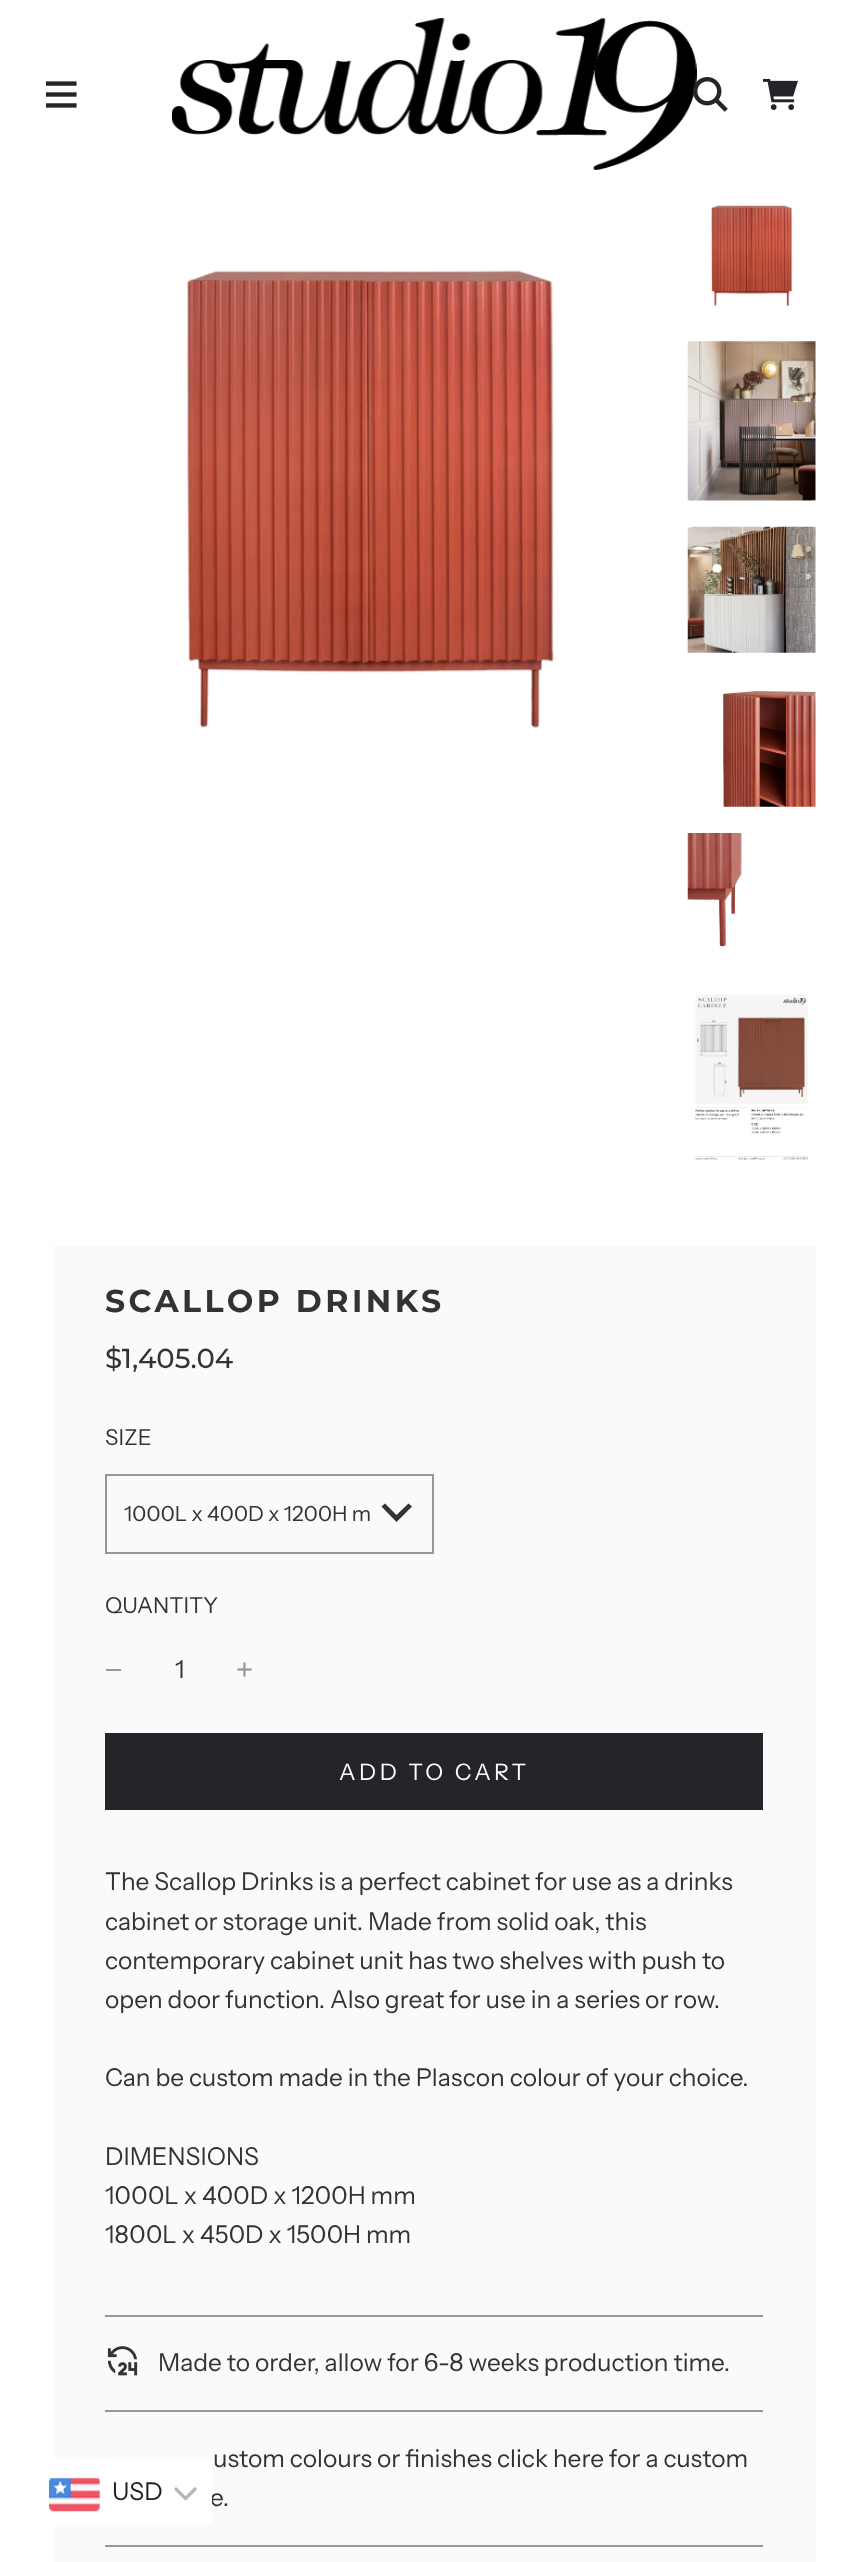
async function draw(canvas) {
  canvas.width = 868
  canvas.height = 2562
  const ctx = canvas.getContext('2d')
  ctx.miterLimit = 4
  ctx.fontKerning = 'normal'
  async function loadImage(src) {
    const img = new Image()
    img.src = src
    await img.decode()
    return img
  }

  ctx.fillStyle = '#fff'
  ctx.fillRect(0, 0, 868, 2562)
  ctx.drawImage(await loadImage('image0.png'), 45, 81, 32, 27)
  ctx.drawImage(await loadImage('image1.png'), 172, 18, 525, 152)
  ctx.drawImage(await loadImage('image2.png'), 693, 77, 35, 35)
  ctx.drawImage(await loadImage('image3.png'), 763, 78, 35, 32)
  ctx.drawImage(await loadImage('image4.png'), 186, 270, 368, 459)
  ctx.drawImage(await loadImage('image5.png'), 711, 205, 82, 101)
  ctx.drawImage(await loadImage('image6.png'), 687, 341, 129, 160)
  ctx.drawImage(await loadImage('image7.png'), 687, 526, 129, 127)
  ctx.drawImage(await loadImage('image8.png'), 723, 691, 93, 116)
  ctx.drawImage(await loadImage('image9.png'), 687, 833, 55, 114)
  ctx.drawImage(await loadImage('image10.png'), 695, 994, 114, 166)
  ctx.fillStyle = '#fafafa'
  ctx.fillRect(53, 1246, 763, 1316)
  ctx.letterSpacing = '3.5px'
  ctx.font = 'bold 31.5px Montserrat'
  ctx.fillStyle = '#333'
  ctx.fillText('SCALLOP DRINKS', 105, 1312)
  ctx.letterSpacing = '0px'
  ctx.font = '500 27.5px Montserrat'
  ctx.fillText('$1,405.04', 105, 1368)
  ctx.font = '22px Instrument Sans'
  ctx.fillText('SIZE', 105, 1445)
  ctx.strokeStyle = '#979797'
  ctx.lineWidth = 2
  ctx.strokeRect(106, 1475, 327, 78)
  ctx.font = '21px Instrument Sans'
  ctx.fillText('1000L x 400D x 1200H m', 124, 1521)
  ctx.beginPath()
  ctx.moveTo(396.5, 1522)
  ctx.lineTo(412, 1506.5)
  ctx.lineTo(408.5, 1503.5)
  ctx.lineTo(396.5, 1515)
  ctx.lineTo(385, 1503.5)
  ctx.lineTo(381.5, 1506.5)
  ctx.closePath()
  ctx.fill()
  ctx.font = '22px Instrument Sans'
  ctx.fillText('QUANTITY', 105, 1613)
  ctx.fillStyle = '#979797'
  ctx.fillRect(106, 1669, 15, 2)
  ctx.font = '24.5px Instrument Sans'
  ctx.fillStyle = '#333'
  ctx.fillText('1', 175, 1678)
  ctx.drawImage(await loadImage('image11.png'), 237, 1662, 15, 15)
  ctx.fillStyle = '#262428'
  ctx.fillRect(105, 1733, 658, 77)
  ctx.letterSpacing = '3.5px'
  ctx.font = '22.75px Instrument Sans'
  ctx.fillStyle = '#fff'
  ctx.fillText('ADD TO CART', 339, 1780)
  ctx.letterSpacing = '0px'
  ctx.font = '24.5px Instrument Sans'
  ctx.fillStyle = '#333'
  ctx.fillText('The Scallop Drinks is a perfect cabinet for use as a drinks', 105, 1890)
  ctx.fillText('cabinet or storage unit. Made from solid oak, this', 105, 1930)
  ctx.fillText('contemporary cabinet unit has two shelves with push to', 105, 1969)
  ctx.fillText('open door function. Also great for use in a series or row.', 105, 2008)
  ctx.fillText('Can be custom made in the Plascon colour of your choice.', 105, 2086)
  ctx.fillText('DIMENSIONS', 105, 2165)
  ctx.fillText('1000L x 400D x 1200H mm', 105, 2204)
  ctx.fillText('1800L x 450D x 1500H mm', 105, 2243)
  ctx.fillStyle = '#979797'
  ctx.fillRect(105, 2315, 658, 2)
  ctx.fillRect(105, 2410, 658, 2)
  ctx.drawImage(await loadImage('image12.png'), 107, 2346, 31, 30)
  ctx.fillStyle = '#333'
  ctx.fillText('Made to order, allow for 6-8 weeks production time.', 158, 2371)
  ctx.fillStyle = '#979797'
  ctx.fillRect(105, 2545, 658, 2)
  ctx.fillStyle = '#333'
  ctx.fillText('ustom colours or finishes click here for a custom', 213, 2467)
  ctx.fillText('e.', 210, 2506)
  ctx.fillStyle = '#fff'
  ctx.beginPath()
  ctx.roundRect(35, 2457, 177, 70, 9)
  ctx.fill()
  ctx.drawImage(await loadImage('image13.png'), 49, 2477, 51, 35)
  ctx.fillStyle = '#1e1e1e'
  ctx.fillText('USD', 112, 2500)
  ctx.beginPath()
  ctx.moveTo(176, 2489)
  ctx.lineTo(185.5, 2498.5)
  ctx.lineTo(195, 2489)
  ctx.strokeStyle = '#b7b7b7'
  ctx.lineWidth = 3.2
  ctx.lineCap = 'round'
  ctx.lineJoin = 'round'
  ctx.stroke()
}

draw(document.querySelector('canvas'))
